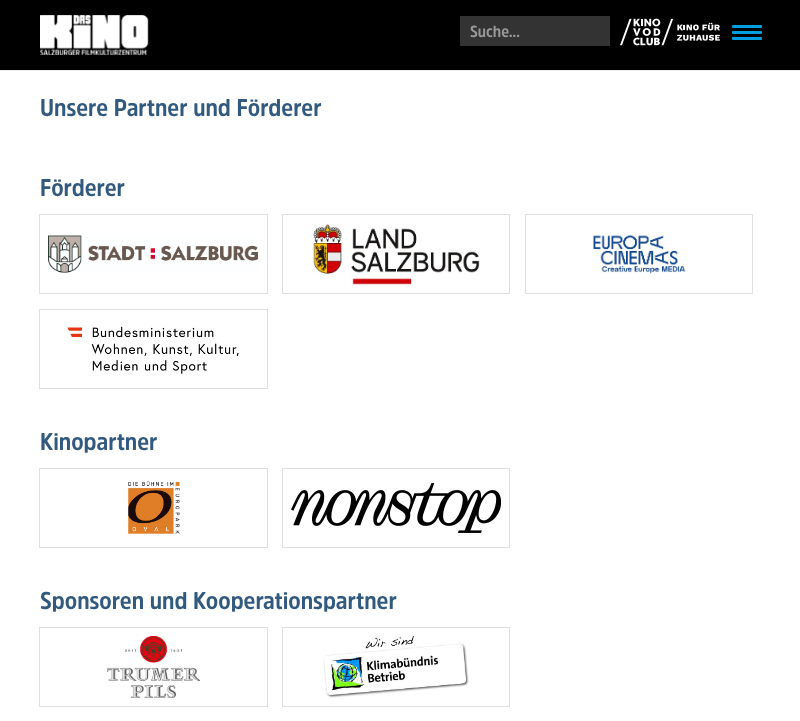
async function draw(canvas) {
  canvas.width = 800
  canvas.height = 721
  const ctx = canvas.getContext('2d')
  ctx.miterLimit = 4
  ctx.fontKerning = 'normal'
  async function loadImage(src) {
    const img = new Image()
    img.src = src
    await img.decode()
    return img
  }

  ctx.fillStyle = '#fff'
  ctx.fillRect(0, 0, 800, 721)
  ctx.fillStyle = '#000'
  ctx.fillRect(0, 0, 800, 70)
  ctx.drawImage(await loadImage('image0.png'), 40, 15, 109, 40)
  ctx.fillStyle = '#009de0'
  ctx.beginPath()
  ctx.roundRect(732, 25, 30, 3, 1)
  ctx.fill()
  ctx.beginPath()
  ctx.roundRect(732, 31, 30, 3, 1)
  ctx.fill()
  ctx.beginPath()
  ctx.roundRect(732, 37, 30, 3, 1)
  ctx.fill()
  ctx.fillStyle = '#eee'
  ctx.fillRect(0, 70, 800, 1)
  ctx.fillStyle = '#333'
  ctx.fillRect(460, 16, 150, 30)
  ctx.font = '16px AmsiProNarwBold'
  ctx.fillStyle = '#999'
  ctx.fillText('Suche...', 470, 37)
  ctx.drawImage(await loadImage('image1.png'), 620, 18, 100, 28)
  ctx.font = '24px AmsiProNarwBold'
  ctx.fillStyle = '#32597e'
  ctx.fillText('Unsere Partner und Förderer', 40, 116)
  ctx.fillText('Förderer', 40, 196)
  ctx.strokeStyle = '#dfdfdf'
  ctx.strokeRect(39.5, 214.5, 228, 79)
  ctx.drawImage(await loadImage('image2.png'), 48, 235, 210, 38)
  ctx.strokeRect(282.5, 214.5, 227, 79)
  ctx.drawImage(await loadImage('image3.png'), 312, 223, 168, 62)
  ctx.strokeRect(525.5, 214.5, 227, 79)
  ctx.drawImage(await loadImage('image4.png'), 592, 235, 94, 39)
  ctx.strokeRect(39.5, 309.5, 228, 79)
  ctx.drawImage(await loadImage('image5.png'), 67, 326, 172, 48)
  ctx.fillText('Kinopartner', 40, 450)
  ctx.strokeRect(39.5, 468.5, 228, 79)
  ctx.drawImage(await loadImage('image6.png'), 128, 481, 52, 53)
  ctx.strokeRect(282.5, 468.5, 227, 79)
  ctx.drawImage(await loadImage('image7.png'), 291, 483, 210, 50)
  ctx.fillText('Sponsoren und Kooperationspartner', 40, 609)
  ctx.strokeRect(39.5, 627.5, 228, 79)
  ctx.drawImage(await loadImage('image8.png'), 107, 636, 93, 62)
  ctx.strokeRect(282.5, 627.5, 227, 79)
  ctx.drawImage(await loadImage('image9.png'), 323, 636, 146, 62)
}

draw(document.querySelector('canvas'))
